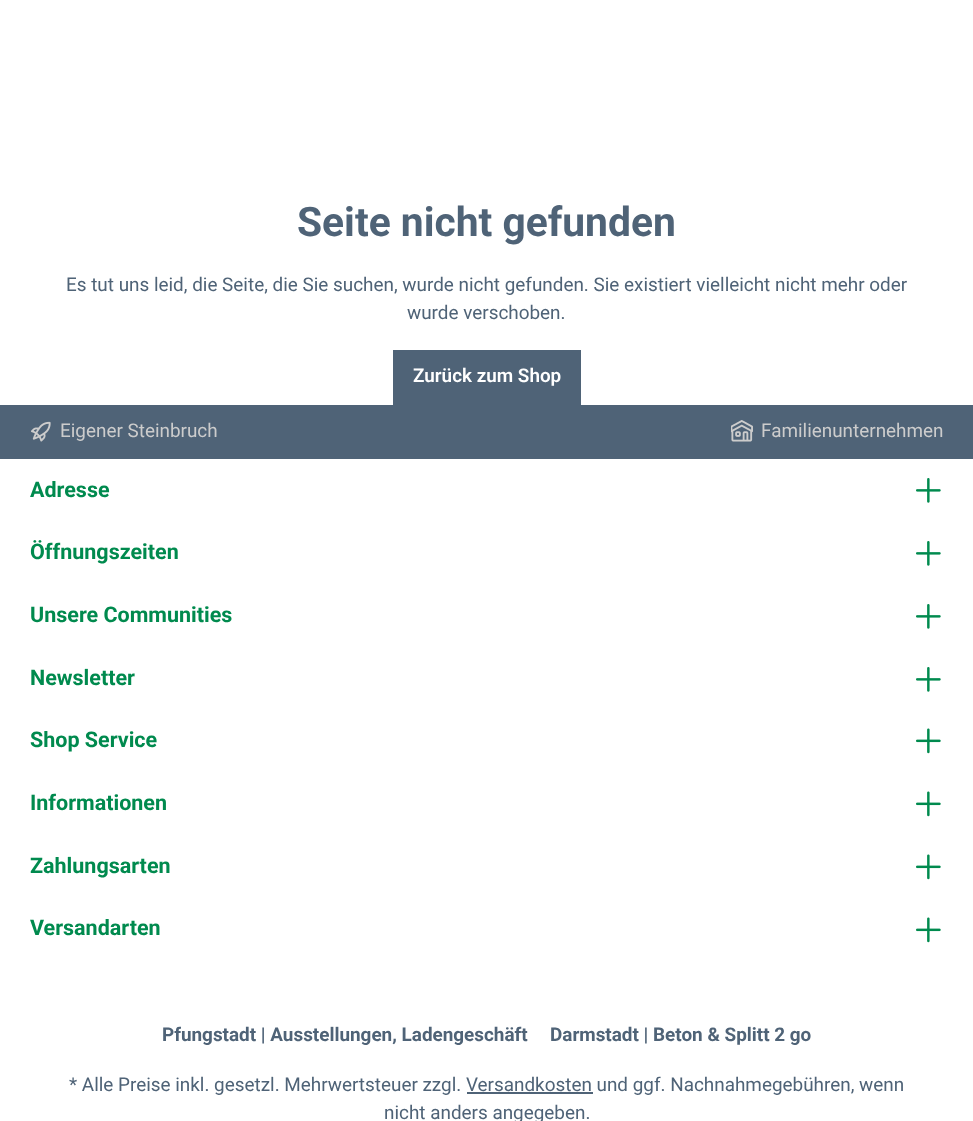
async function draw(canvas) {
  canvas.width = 973
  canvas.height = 1121
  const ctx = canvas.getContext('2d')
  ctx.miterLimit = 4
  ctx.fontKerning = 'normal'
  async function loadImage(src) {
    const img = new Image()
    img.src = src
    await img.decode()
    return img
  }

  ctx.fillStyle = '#fff'
  ctx.fillRect(0, 0, 973, 1121)
  ctx.font = 'bold 40.75px Roboto'
  ctx.fillStyle = '#4f6377'
  ctx.fillText('Seite nicht gefunden', 297, 236)
  ctx.font = '18.9px Roboto'
  ctx.fillText('Es tut uns leid, die Seite, die Sie suchen, wurde nicht gefunden. Sie existiert vielleicht nicht mehr oder', 66, 291)
  ctx.fillText('wurde verschoben.', 407, 319)
  ctx.fillRect(393, 350, 188, 55)
  ctx.font = '600 18.9px Roboto'
  ctx.fillStyle = '#fff'
  ctx.fillText('Zurück zum Shop', 413, 382)
  ctx.fillStyle = '#4f6377'
  ctx.fillRect(0, 405, 973, 54)
  ctx.drawImage(await loadImage('image0.png'), 31, 421, 20, 21)
  ctx.font = '18.9px Roboto'
  ctx.fillStyle = '#ccc'
  ctx.fillText('Eigener Steinbruch', 60, 437)
  ctx.drawImage(await loadImage('image1.png'), 731, 420, 22, 22)
  ctx.fillText('Familienunternehmen', 761, 437)
  ctx.font = 'bold 21.5px Roboto'
  ctx.fillStyle = '#008a4e'
  ctx.fillText('Adresse', 30, 497)
  ctx.drawImage(await loadImage('image2.png'), 916, 478, 25, 25)
  ctx.fillText('Öffnungszeiten', 30, 559)
  ctx.drawImage(await loadImage('image2.png'), 916, 541, 25, 25)
  ctx.fillText('Unsere Communities', 30, 622)
  ctx.drawImage(await loadImage('image2.png'), 916, 604, 25, 25)
  ctx.fillText('Newsletter', 30, 685)
  ctx.drawImage(await loadImage('image2.png'), 916, 667, 25, 25)
  ctx.fillText('Shop Service', 30, 747)
  ctx.drawImage(await loadImage('image3.png'), 916, 728, 25, 26)
  ctx.fillText('Informationen', 30, 810)
  ctx.drawImage(await loadImage('image3.png'), 916, 791, 25, 26)
  ctx.fillText('Zahlungsarten', 30, 873)
  ctx.drawImage(await loadImage('image3.png'), 916, 854, 25, 26)
  ctx.fillText('Versandarten', 30, 935)
  ctx.drawImage(await loadImage('image3.png'), 916, 917, 25, 26)
  ctx.font = 'bold 18.9px Roboto'
  ctx.fillStyle = '#4f6377'
  ctx.fillText('Pfungstadt | Ausstellungen, Ladengeschäft', 162, 1041)
  ctx.fillText('Darmstadt | Beton & Splitt 2 go', 550, 1041)
  ctx.font = '18.9px Roboto'
  ctx.fillText('* Alle Preise inkl. gesetzl. Mehrwertsteuer zzgl. Versandkosten und ggf. Nachnahmegebühren, wenn', 69, 1091)
  ctx.fillRect(467, 1092, 126, 2)
  ctx.fillText('nicht anders angegeben.', 384, 1119)
}

draw(document.querySelector('canvas'))
